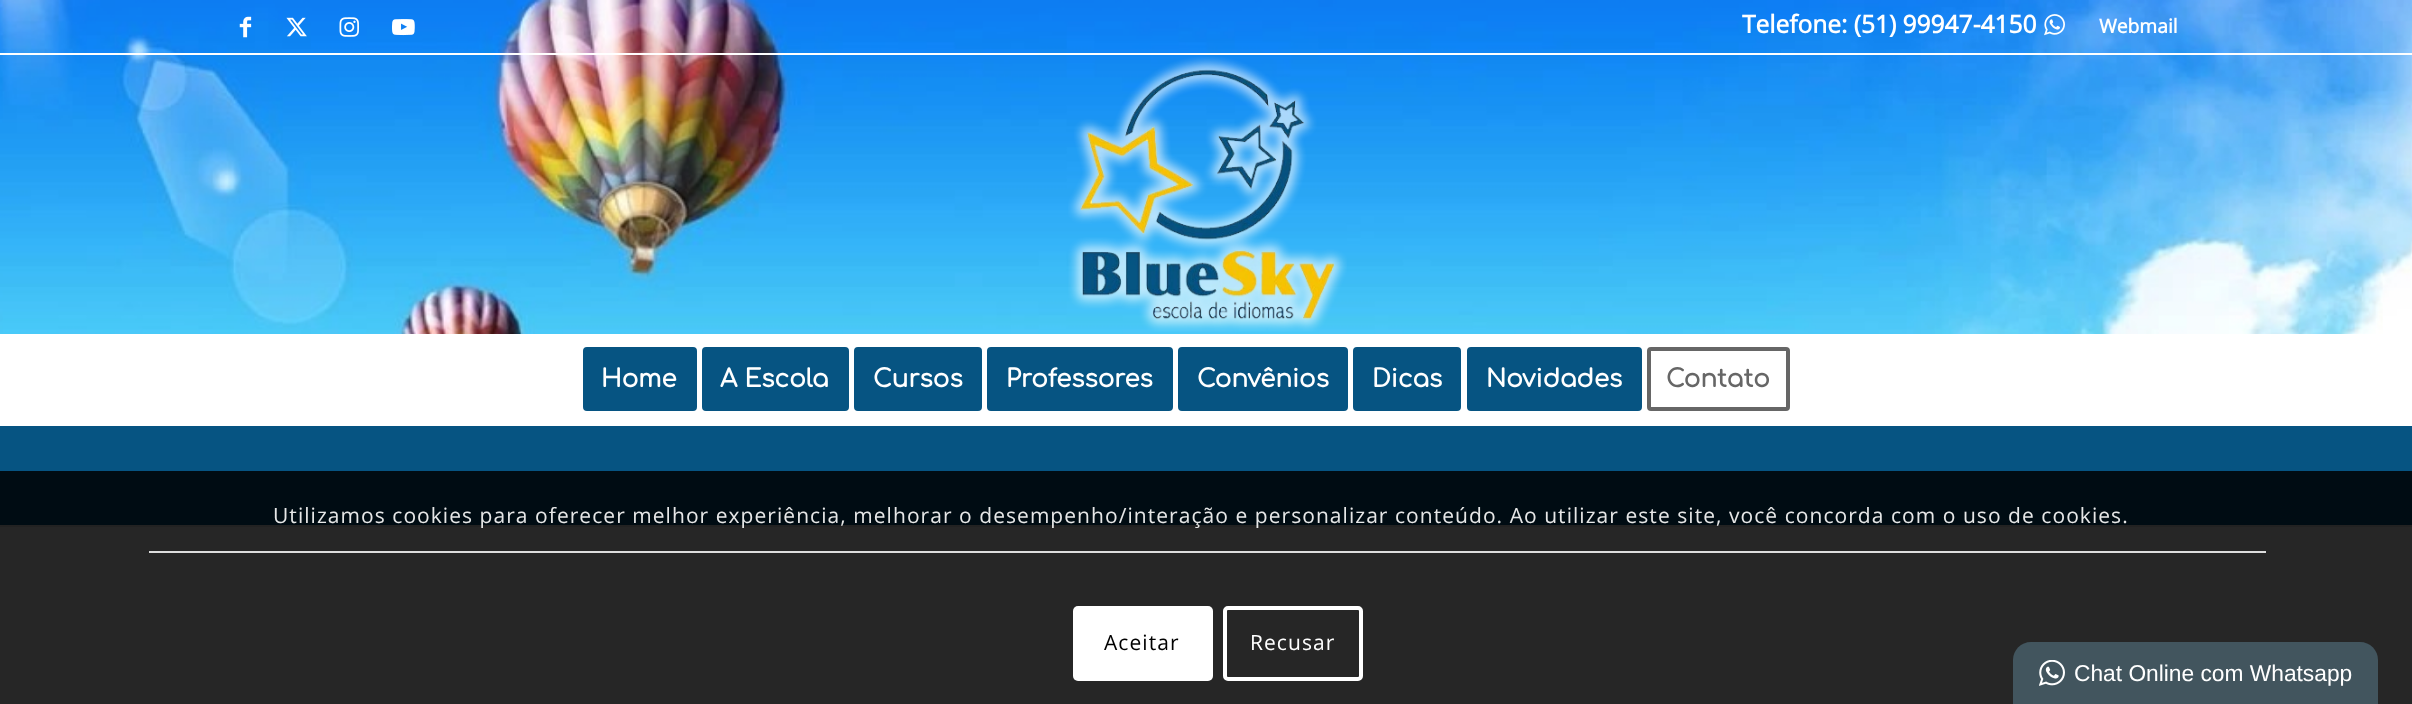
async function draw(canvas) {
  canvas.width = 2412
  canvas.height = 704
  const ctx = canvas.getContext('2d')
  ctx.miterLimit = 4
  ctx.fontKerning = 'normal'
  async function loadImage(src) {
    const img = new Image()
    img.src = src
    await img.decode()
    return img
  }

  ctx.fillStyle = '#fff'
  ctx.fillRect(0, 0, 2412, 704)
  ctx.drawImage(await loadImage('image0.png'), 0, 0, 2412, 334)
  ctx.drawImage(await loadImage('image1.png'), 239, 16, 13, 22)
  ctx.drawImage(await loadImage('image2.png'), 286, 17, 21, 20)
  ctx.drawImage(await loadImage('image3.png'), 339, 17, 20, 20)
  ctx.drawImage(await loadImage('image4.png'), 392, 19, 23, 17)
  ctx.font = 'bold 24.5px Open Sans'
  ctx.fillText('Telefone: (51) 99947-4150', 1742, 33)
  ctx.drawImage(await loadImage('image5.png'), 2044, 14, 21, 22)
  ctx.font = 'bold 19.25px Open Sans'
  ctx.fillText('Webmail', 2099, 33)
  ctx.fillRect(0, 53, 2412, 2)
  ctx.drawImage(await loadImage('image6.png'), 1068, 56, 279, 276)
  ctx.fillStyle = '#065482'
  ctx.beginPath()
  ctx.roundRect(585, 349, 110, 60, 2)
  ctx.fill()
  ctx.strokeStyle = '#065482'
  ctx.lineWidth = 4
  ctx.stroke()
  ctx.font = 'bold 24.5px Comfortaa'
  ctx.fillStyle = '#fff'
  ctx.fillText('Home', 601, 387)
  ctx.fillStyle = '#065482'
  ctx.beginPath()
  ctx.roundRect(704, 349, 143, 60, 2)
  ctx.fill()
  ctx.stroke()
  ctx.fillStyle = '#fff'
  ctx.fillText('A Escola', 720, 387)
  ctx.fillStyle = '#065482'
  ctx.beginPath()
  ctx.roundRect(856, 349, 124, 60, 2)
  ctx.fill()
  ctx.stroke()
  ctx.fillStyle = '#fff'
  ctx.fillText('Cursos', 873, 387)
  ctx.fillStyle = '#065482'
  ctx.beginPath()
  ctx.roundRect(989, 349, 182, 60, 2)
  ctx.fill()
  ctx.stroke()
  ctx.fillStyle = '#fff'
  ctx.fillText('Professores', 1006, 387)
  ctx.fillStyle = '#065482'
  ctx.beginPath()
  ctx.roundRect(1180, 349, 166, 60, 2)
  ctx.fill()
  ctx.stroke()
  ctx.fillStyle = '#fff'
  ctx.fillText('Convênios', 1197, 387)
  ctx.fillStyle = '#065482'
  ctx.beginPath()
  ctx.roundRect(1355, 349, 104, 60, 2)
  ctx.fill()
  ctx.stroke()
  ctx.fillStyle = '#fff'
  ctx.fillText('Dicas', 1372, 387)
  ctx.fillStyle = '#065482'
  ctx.beginPath()
  ctx.roundRect(1469, 349, 171, 60, 2)
  ctx.fill()
  ctx.stroke()
  ctx.fillStyle = '#fff'
  ctx.fillText('Novidades', 1486, 387)
  ctx.beginPath()
  ctx.roundRect(1649, 349, 139, 60, 2)
  ctx.strokeStyle = '#666'
  ctx.stroke()
  ctx.fillStyle = '#666'
  ctx.fillText('Contato', 1666, 387)
  ctx.fillStyle = '#065482'
  ctx.fillRect(0, 426, 2412, 99)
  ctx.fillStyle = '#e1e1e1'
  ctx.fillRect(0, 525, 2412, 2)
  ctx.fillStyle = '#000000d9'
  ctx.fillRect(0, 471, 2412, 233)
  ctx.letterSpacing = '1.05px'
  ctx.font = '21px Open Sans'
  ctx.fillStyle = '#e6e7e7'
  ctx.fillText('Utilizamos cookies para oferecer melhor experiência, melhorar o desempenho/interação e personalizar conteúdo. Ao utilizar este site, você concorda com o uso de cookies.', 273, 523)
  ctx.fillStyle = '#ddd'
  ctx.fillRect(149, 551, 2117, 2)
  ctx.fillStyle = '#fff'
  ctx.beginPath()
  ctx.roundRect(1073, 606, 140, 75, 5)
  ctx.fill()
  ctx.fillStyle = '#000'
  ctx.fillText('Aceitar', 1104, 650)
  ctx.beginPath()
  ctx.roundRect(1225, 608, 136, 71, 3)
  ctx.strokeStyle = '#fff'
  ctx.stroke()
  ctx.fillStyle = '#fff'
  ctx.fillText('Recusar', 1250, 650)
  ctx.fillStyle = '#42555e'
  ctx.beginPath()
  ctx.moveTo(2031, 642)
  ctx.lineTo(2360, 642)
  ctx.bezierCurveTo(2370, 642, 2378, 650, 2378, 660)
  ctx.lineTo(2378, 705)
  ctx.lineTo(2013, 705)
  ctx.lineTo(2013, 660)
  ctx.bezierCurveTo(2013, 650, 2021, 642, 2031, 642)
  ctx.closePath()
  ctx.fill()
  ctx.drawImage(await loadImage('image7.png'), 2039, 660, 26, 26)
  ctx.letterSpacing = '0px'
  ctx.font = '22.75px Liberation Sans'
  ctx.fillStyle = '#fff'
  ctx.fillText('Chat Online com Whatsapp', 2074, 681)
}

draw(document.querySelector('canvas'))
